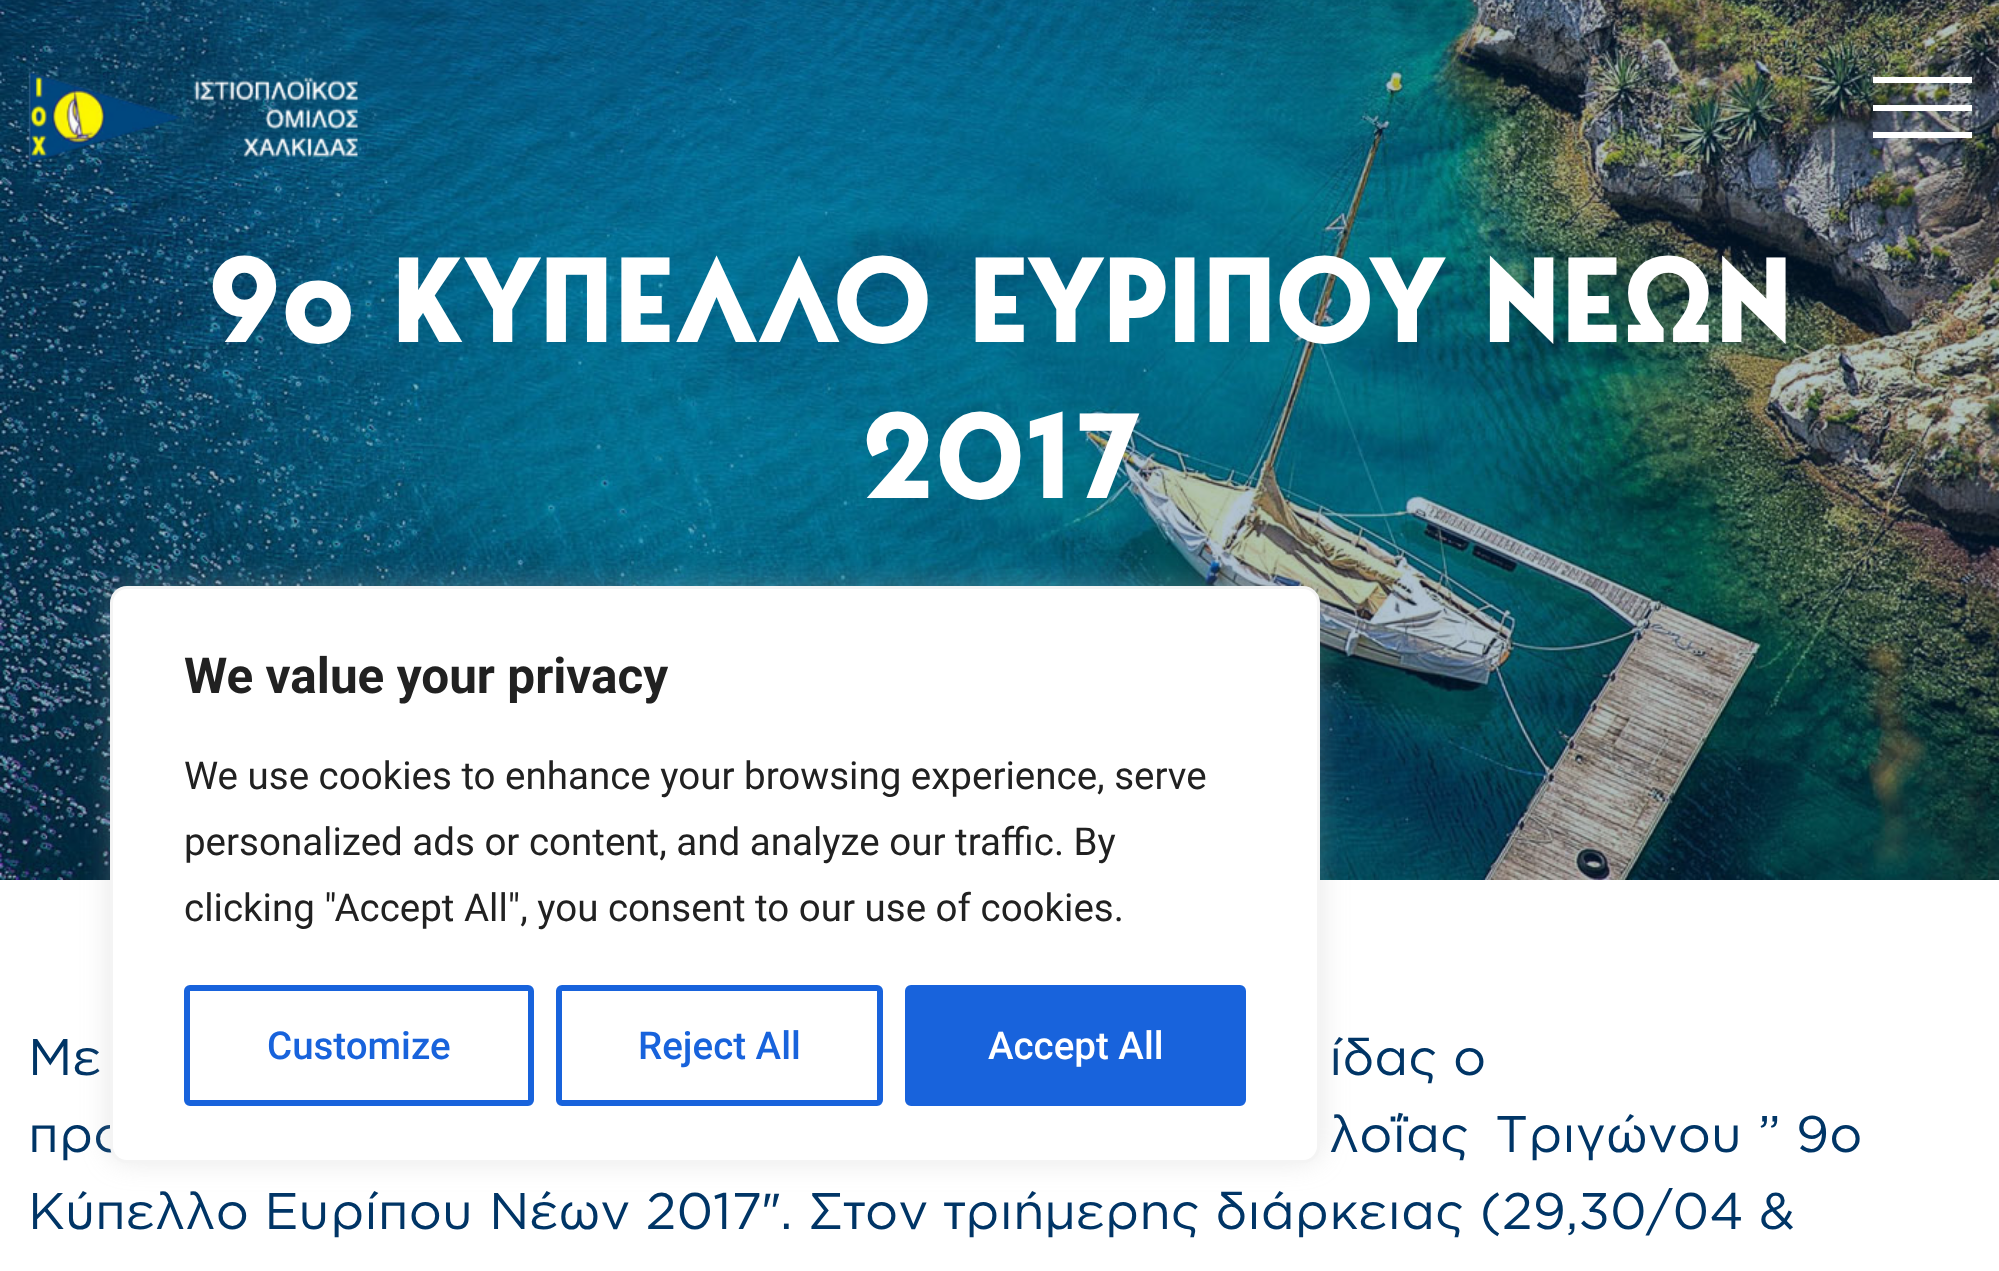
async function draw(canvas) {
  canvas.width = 1999
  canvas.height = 1271
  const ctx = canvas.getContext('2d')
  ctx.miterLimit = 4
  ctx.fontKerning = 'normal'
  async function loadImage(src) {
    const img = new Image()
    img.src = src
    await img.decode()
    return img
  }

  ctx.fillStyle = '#fff'
  ctx.fillRect(0, 0, 1999, 1271)
  ctx.drawImage(await loadImage('image1.png'), 0, 0, 1999, 880)
  ctx.drawImage(await loadImage('image0.png'), 28, 71, 330, 93)
  ctx.fillRect(1873, 132, 99, 6)
  ctx.fillRect(1873, 77, 99, 6)
  ctx.fillRect(1873, 105, 99, 6)
  ctx.font = 'bold 120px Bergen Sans'
  ctx.fillText('9ο ΚΥΠΕΛΛΟ ΕΥΡΙΠΟΥ ΝΕΩΝ', 207, 342)
  ctx.fillText('2017', 861, 498)
  ctx.font = '51.3px Gotham'
  ctx.fillStyle = '#003566'
  ctx.fillText('Με', 28, 1075)
  ctx.fillText('ίδας ο', 1329, 1075)
  ctx.fillText('προ', 28, 1152)
  ctx.fillText('λοΐας', 1329, 1152)
  ctx.fillText('Τριγώνου ” 9ο', 1495, 1152)
  ctx.fillText('Κύπελλο Ευρίπου Νέων 2017', 28, 1229)
  ctx.font = '51.3px Liberation Sans'
  ctx.fillText('″', 762, 1229)
  ctx.font = '51.3px Gotham'
  ctx.fillText('. Στον τριήμερης διάρκειας (29,30/04 &', 780, 1229)
  ctx.fillStyle = '#acabab4d'
  ctx.filter = 'blur(14px)'
  ctx.beginPath()
  ctx.roundRect(110, 583, 1210, 578, 17)
  ctx.fill()
  ctx.filter = 'none'
  ctx.fillStyle = '#fff'
  ctx.beginPath()
  ctx.roundRect(111.5, 587.5, 1207, 574, 15.5)
  ctx.fill()
  ctx.strokeStyle = '#f4f4f4'
  ctx.lineWidth = 3
  ctx.stroke()
  ctx.font = 'bold 49.5px Roboto'
  ctx.fillStyle = '#212121'
  ctx.fillText('We value your privacy', 184, 693)
  ctx.font = '38.5px Roboto'
  ctx.fillText('We use cookies to enhance your browsing experience, serve', 184, 789)
  ctx.fillText('personalized ads or content, and analyze our traffic. By', 184, 855)
  ctx.fillText('clicking "Accept All", you consent to our use of cookies.', 184, 921)
  ctx.beginPath()
  ctx.roundRect(187, 988, 344, 115, 3)
  ctx.strokeStyle = '#1863dc'
  ctx.lineWidth = 6
  ctx.stroke()
  ctx.font = '500 38.5px Roboto'
  ctx.fillStyle = '#1863dc'
  ctx.fillText('Customize', 267, 1059)
  ctx.beginPath()
  ctx.roundRect(559, 988, 321, 115, 3)
  ctx.stroke()
  ctx.fillText('Reject All', 638, 1059)
  ctx.beginPath()
  ctx.roundRect(908, 988, 335, 115, 3)
  ctx.fill()
  ctx.stroke()
  ctx.fillStyle = '#fff'
  ctx.fillText('Accept All', 988, 1059)
}

draw(document.querySelector('canvas'))
